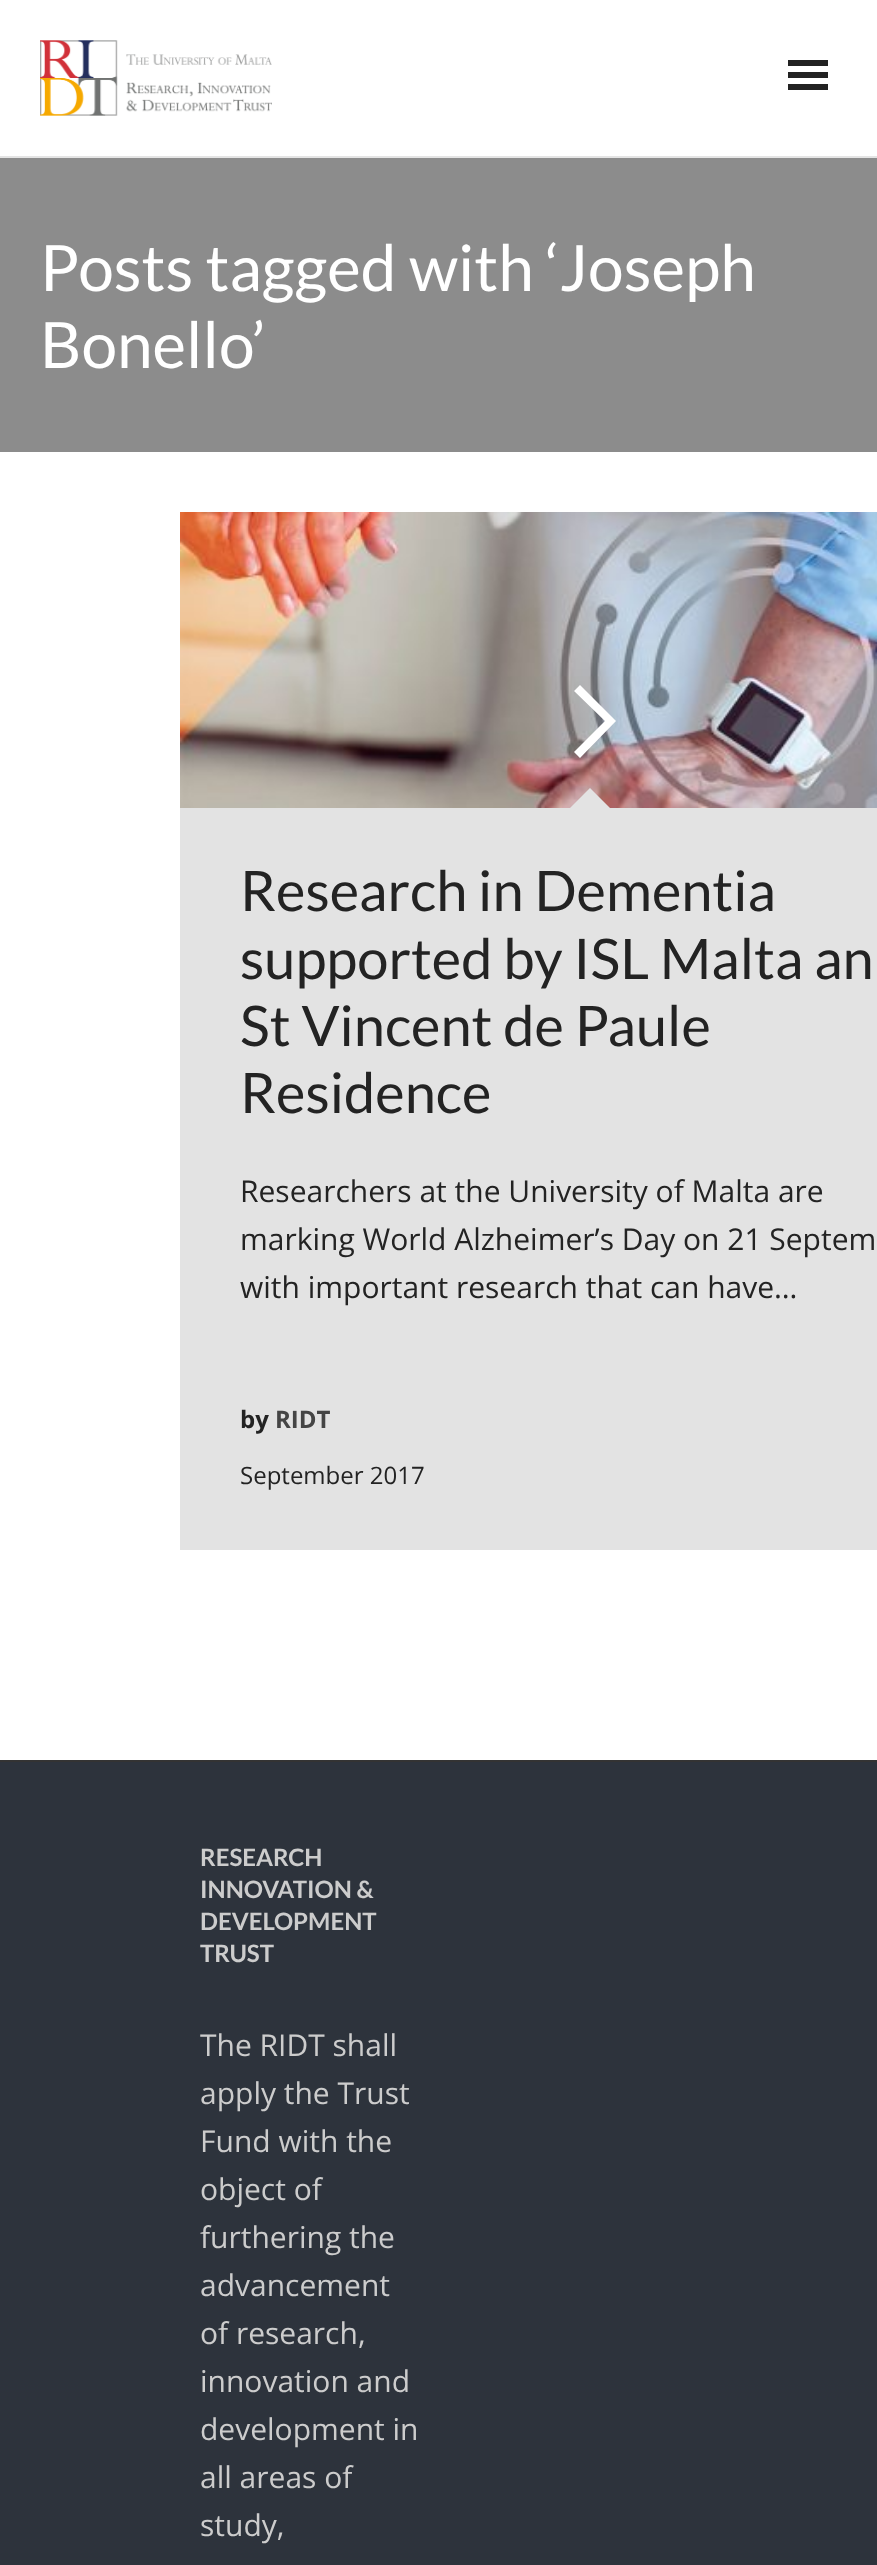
async function draw(canvas) {
  canvas.width = 877
  canvas.height = 2565
  const ctx = canvas.getContext('2d')
  ctx.miterLimit = 4
  ctx.fontKerning = 'normal'
  async function loadImage(src) {
    const img = new Image()
    img.src = src
    await img.decode()
    return img
  }

  ctx.fillStyle = '#fff'
  ctx.fillRect(0, 0, 877, 2565)
  ctx.fillStyle = '#e4e4e4'
  ctx.fillRect(0, 156, 877, 2)
  ctx.drawImage(await loadImage('image0.png'), 40, 40, 232, 76)
  ctx.fillStyle = '#222'
  ctx.fillRect(788, 72, 40, 6)
  ctx.fillRect(788, 60, 40, 6)
  ctx.fillRect(788, 84, 40, 6)
  ctx.fillStyle = '#8c8c8c'
  ctx.fillRect(0, 158, 877, 294)
  ctx.font = '64px Lato'
  ctx.fillStyle = '#fff'
  ctx.fillText('Posts tagged with ‘Joseph', 40, 291)
  ctx.fillText('Bonello’', 40, 368)
  ctx.drawImage(await loadImage('image1.png'), 180, 512, 697, 296)
  ctx.beginPath()
  ctx.moveTo(580, 758)
  ctx.lineTo(574, 752)
  ctx.lineTo(605, 721)
  ctx.lineTo(574, 691)
  ctx.lineTo(580, 685)
  ctx.lineTo(616, 721)
  ctx.closePath()
  ctx.fill()
  ctx.fillStyle = '#e3e3e3'
  ctx.fillRect(180, 808, 697, 742)
  ctx.beginPath()
  ctx.moveTo(610, 808)
  ctx.lineTo(570, 808)
  ctx.lineTo(590, 788)
  ctx.closePath()
  ctx.fill()
  ctx.font = '56px Lato'
  ctx.fillStyle = '#232323'
  ctx.fillText('Research in Dementia', 240, 911)
  ctx.fillText('supported by ISL Malta an', 240, 979)
  ctx.fillText('St Vincent de Paule', 240, 1046)
  ctx.fillText('Residence', 240, 1113)
  ctx.font = '30px Open Sans'
  ctx.fillText('Researchers at the University of Malta are', 240, 1202)
  ctx.fillText('marking World Alzheimer’s Day on 21 Septem', 240, 1250)
  ctx.fillText('with important research that can have…', 240, 1298)
  ctx.font = 'bold 24px Open Sans'
  ctx.fillText('by', 240, 1428)
  ctx.fillStyle = '#454545'
  ctx.fillText('RIDT', 275, 1428)
  ctx.font = '24px Open Sans'
  ctx.fillStyle = '#232323'
  ctx.fillText('September 2017', 240, 1484)
  ctx.fillStyle = '#2d333c'
  ctx.fillRect(0, 1762, 877, 803)
  ctx.fillStyle = '#333'
  ctx.fillRect(0, 1760, 877, 2)
  ctx.font = 'bold 24px Lato'
  ctx.fillStyle = '#ccc'
  ctx.fillText('RESEARCH', 200, 1866)
  ctx.fillText('INNOVATION &', 200, 1898)
  ctx.fillText('DEVELOPMENT', 200, 1930)
  ctx.fillText('TRUST', 200, 1962)
  ctx.font = '30px Open Sans'
  ctx.fillText('The RIDT shall', 200, 2056)
  ctx.fillText('apply the Trust', 200, 2104)
  ctx.fillText('Fund with the', 200, 2152)
  ctx.fillText('object of', 200, 2200)
  ctx.fillText('furthering the', 200, 2248)
  ctx.fillText('advancement', 200, 2296)
  ctx.fillText('of research,', 200, 2344)
  ctx.fillText('innovation and', 200, 2392)
  ctx.fillText('development in', 200, 2440)
  ctx.fillText('all areas of', 200, 2488)
  ctx.fillText('study,', 200, 2536)
}

draw(document.querySelector('canvas'))
